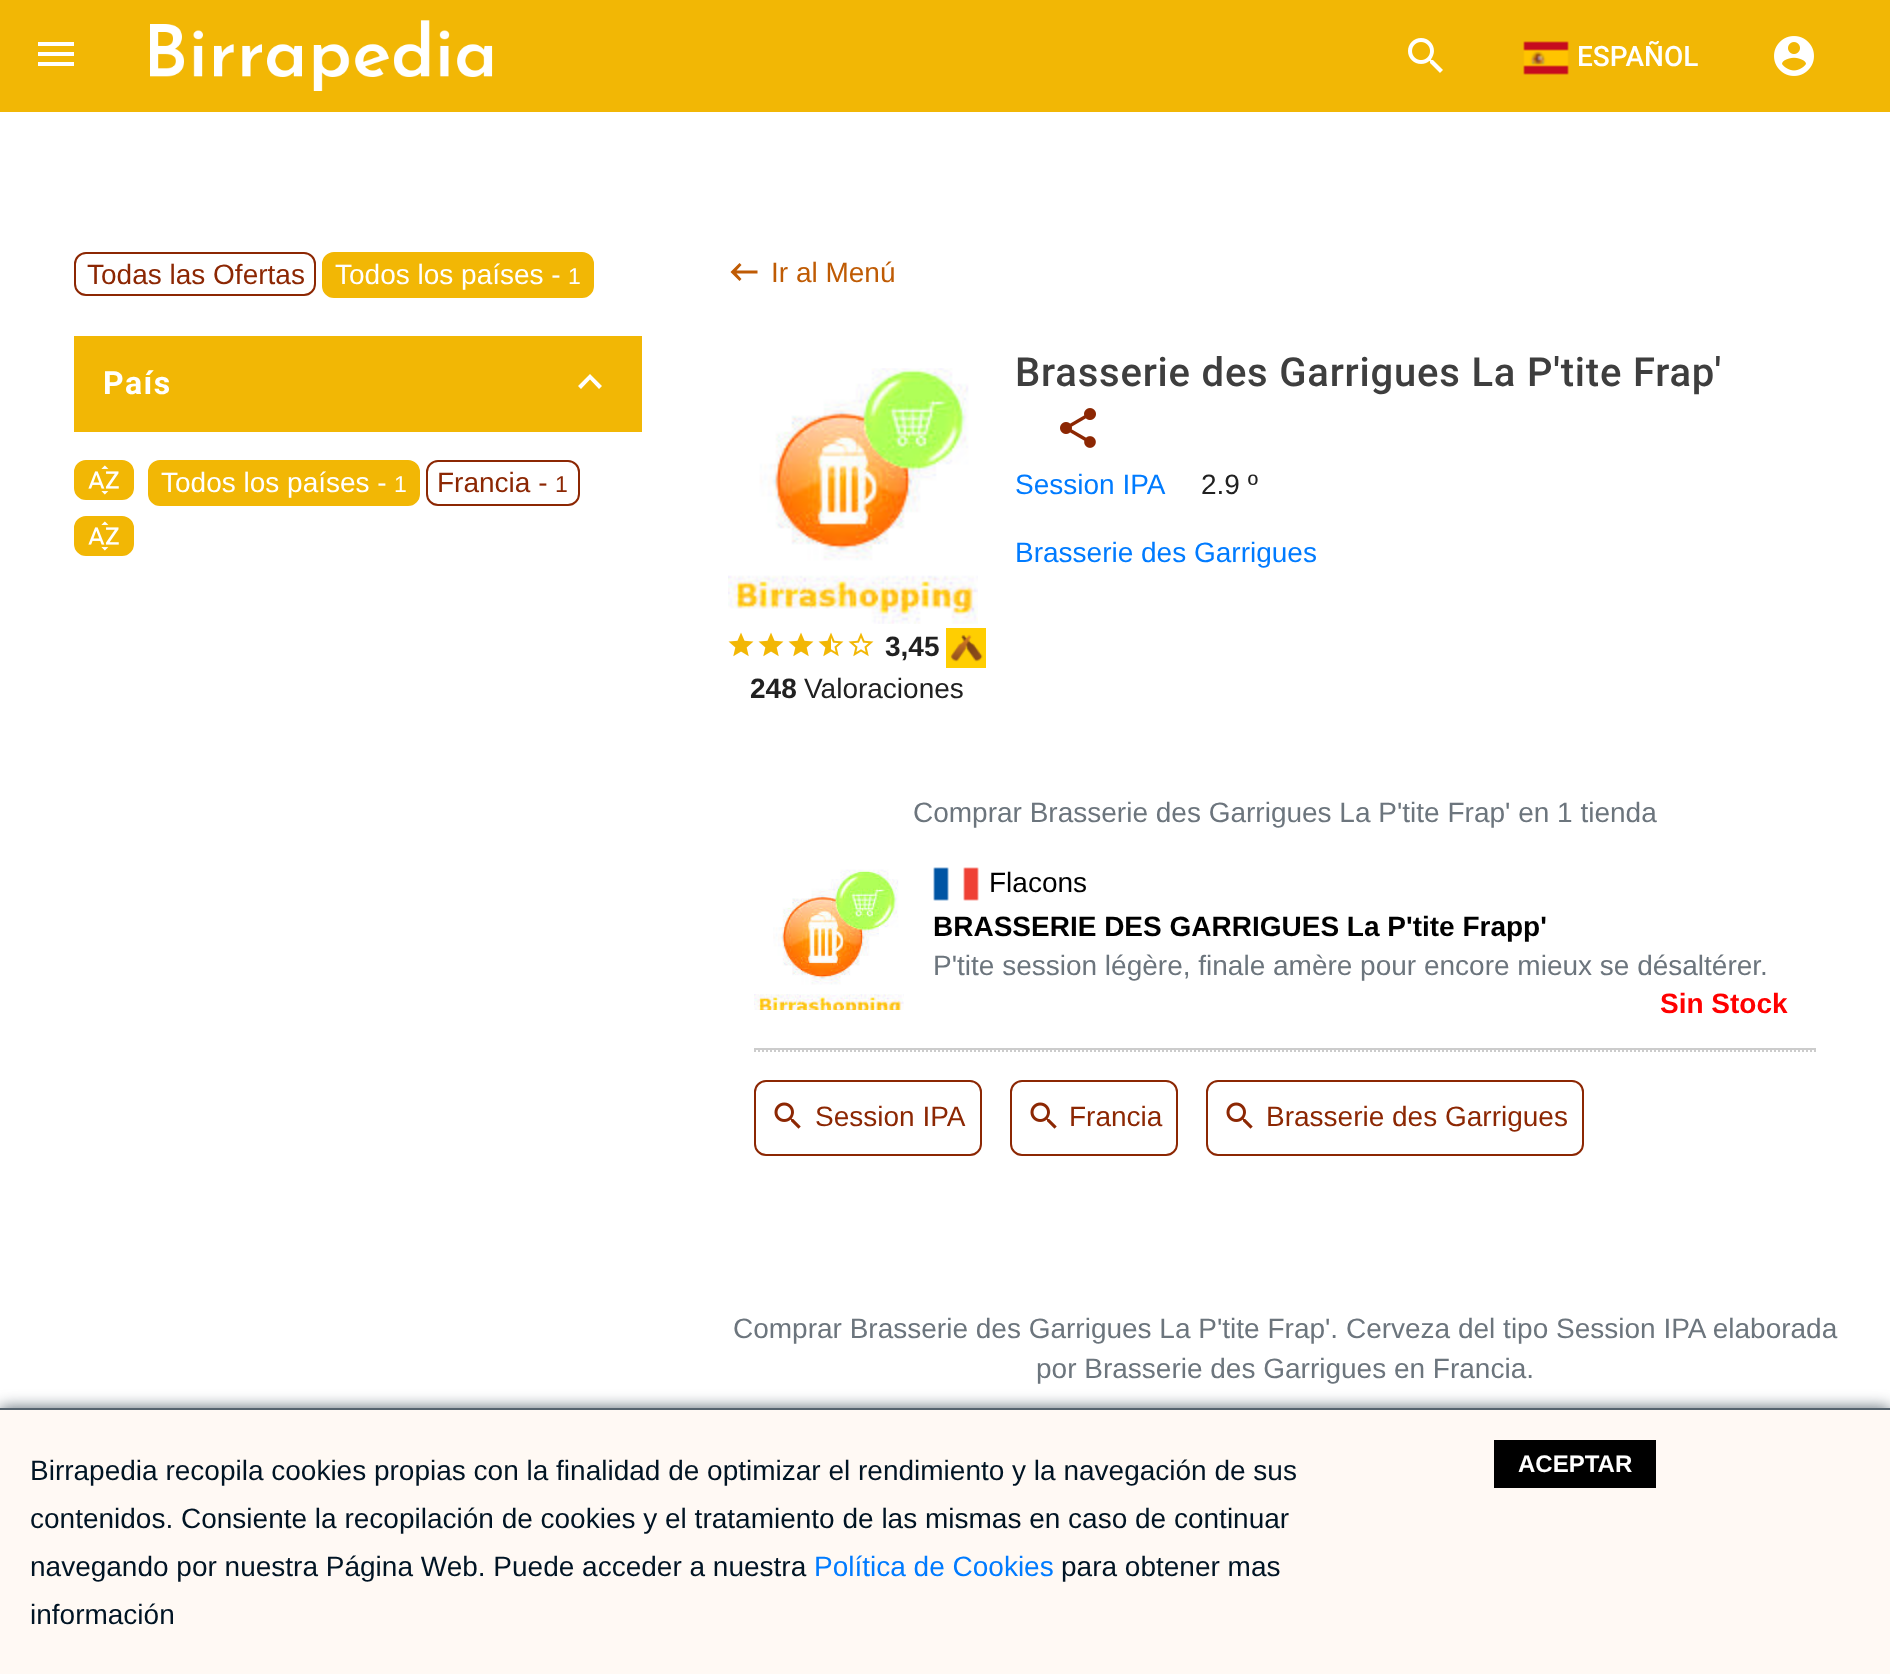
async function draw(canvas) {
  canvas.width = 1890
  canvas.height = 1674
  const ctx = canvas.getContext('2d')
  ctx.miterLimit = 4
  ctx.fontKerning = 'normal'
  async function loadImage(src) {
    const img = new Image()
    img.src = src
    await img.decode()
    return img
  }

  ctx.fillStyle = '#fff'
  ctx.fillRect(0, 0, 1890, 1674)
  ctx.fillStyle = '#f2b705'
  ctx.fillRect(0, 0, 1890, 112)
  ctx.fillStyle = '#fff'
  ctx.beginPath()
  ctx.moveTo(38, 42)
  ctx.lineTo(74, 42)
  ctx.lineTo(74, 46)
  ctx.lineTo(38, 46)
  ctx.closePath()
  ctx.moveTo(38, 56)
  ctx.lineTo(38, 52)
  ctx.lineTo(74, 52)
  ctx.lineTo(74, 56)
  ctx.closePath()
  ctx.moveTo(38, 66)
  ctx.lineTo(38, 62)
  ctx.lineTo(74, 62)
  ctx.lineTo(74, 66)
  ctx.closePath()
  ctx.fill()
  ctx.drawImage(await loadImage('image0.png'), 150, 20, 343, 71)
  ctx.drawImage(await loadImage('image1.png'), 1408, 38, 35, 35)
  ctx.drawImage(await loadImage('image2.png'), 1523, 41, 46, 34)
  ctx.font = '500 28px Roboto'
  ctx.fillText('ESPAÑOL', 1577, 66)
  ctx.drawImage(await loadImage('image3.png'), 1774, 36, 40, 40)
  ctx.beginPath()
  ctx.roundRect(75, 253, 240, 42, 11)
  ctx.strokeStyle = '#8c2703'
  ctx.lineWidth = 2
  ctx.stroke()
  ctx.font = '28px Liberation Sans'
  ctx.fillStyle = '#8c2703'
  ctx.fillText('Todas las Ofertas', 87, 284)
  ctx.fillStyle = '#f2b705'
  ctx.beginPath()
  ctx.roundRect(323, 253, 270, 44, 11)
  ctx.fill()
  ctx.strokeStyle = '#f2b705'
  ctx.stroke()
  ctx.fillStyle = '#fff'
  ctx.fillText('Todos los países -', 335, 284)
  ctx.font = '23px Liberation Sans'
  ctx.fillText('1', 568, 284)
  ctx.fillStyle = '#f2b705'
  ctx.fillRect(74, 336, 568, 96)
  ctx.letterSpacing = '1.5px'
  ctx.font = 'bold 32px Roboto'
  ctx.fillStyle = '#fff'
  ctx.fillText('País', 103, 394)
  ctx.beginPath()
  ctx.moveTo(581, 389)
  ctx.lineTo(578, 386)
  ctx.lineTo(590, 374)
  ctx.lineTo(602, 386)
  ctx.lineTo(599, 389)
  ctx.lineTo(590, 379.5)
  ctx.closePath()
  ctx.fill()
  ctx.fillStyle = '#f2b705'
  ctx.beginPath()
  ctx.roundRect(75, 461, 58, 38, 11)
  ctx.fill()
  ctx.stroke()
  ctx.drawImage(await loadImage('image4.png'), 88, 465, 31, 30)
  ctx.beginPath()
  ctx.roundRect(149, 461, 270, 44, 11)
  ctx.fill()
  ctx.stroke()
  ctx.letterSpacing = '0px'
  ctx.font = '28px Liberation Sans'
  ctx.fillStyle = '#fff'
  ctx.fillText('Todos los países -', 161, 492)
  ctx.font = '23px Liberation Sans'
  ctx.fillText('1', 394, 492)
  ctx.beginPath()
  ctx.roundRect(427, 461, 152, 44, 11)
  ctx.strokeStyle = '#8c2703'
  ctx.stroke()
  ctx.font = '28px Liberation Sans'
  ctx.fillStyle = '#8c2703'
  ctx.fillText('Francia -', 437, 492)
  ctx.font = '23px Liberation Sans'
  ctx.fillText('1', 555, 492)
  ctx.fillStyle = '#f2b705'
  ctx.beginPath()
  ctx.roundRect(75, 517, 58, 38, 11)
  ctx.fill()
  ctx.strokeStyle = '#f2b705'
  ctx.stroke()
  ctx.drawImage(await loadImage('image4.png'), 88, 521, 31, 30)
  ctx.fillStyle = '#bf5b04'
  ctx.beginPath()
  ctx.moveTo(757.5, 270.5)
  ctx.lineTo(757.5, 273.5)
  ctx.lineTo(736.5, 273.5)
  ctx.lineTo(741.5, 279)
  ctx.lineTo(739.5, 281)
  ctx.lineTo(730.5, 272)
  ctx.lineTo(739.5, 263)
  ctx.lineTo(741.5, 265)
  ctx.lineTo(736.5, 270.5)
  ctx.closePath()
  ctx.fill()
  ctx.font = '28px Liberation Sans'
  ctx.fillText('Ir al Menú', 771, 282)
  ctx.letterSpacing = '0.8px'
  ctx.font = '500 40px Roboto'
  ctx.fillStyle = '#3e3e3e'
  ctx.fillText('Brasserie des Garrigues La P\'tite Frap\'', 1015, 386)
  ctx.drawImage(await loadImage('image5.png'), 1060, 408, 36, 40)
  ctx.letterSpacing = '0px'
  ctx.font = '28px Liberation Sans'
  ctx.fillStyle = '#007bff'
  ctx.fillText('Session IPA', 1015, 494)
  ctx.fillStyle = '#212121'
  ctx.fillText('2.9 º', 1201, 494)
  ctx.fillStyle = '#007bff'
  ctx.fillText('Brasserie des Garrigues', 1015, 562)
  ctx.drawImage(await loadImage('image6.png'), 728, 368, 250, 256)
  ctx.drawImage(await loadImage('image7.png'), 728, 632, 26, 25)
  ctx.drawImage(await loadImage('image7.png'), 758, 632, 26, 25)
  ctx.drawImage(await loadImage('image7.png'), 788, 632, 26, 25)
  ctx.drawImage(await loadImage('image8.png'), 818, 632, 26, 25)
  ctx.drawImage(await loadImage('image9.png'), 848, 632, 26, 25)
  ctx.font = 'bold 28px Liberation Sans'
  ctx.fillStyle = '#212121'
  ctx.fillText('3,45', 885, 656)
  ctx.drawImage(await loadImage('image10.png'), 946, 628, 40, 40)
  ctx.fillText('248', 750, 698)
  ctx.font = '28px Liberation Sans'
  ctx.fillText('Valoraciones', 804, 698)
  ctx.fillStyle = '#6c757d'
  ctx.fillText('Comprar Brasserie des Garrigues La P\'tite Frap\' en 1 tienda', 913, 822)
  ctx.drawImage(await loadImage('image11.png'), 754, 869, 150, 141)
  ctx.drawImage(await loadImage('image12.png'), 933, 867, 46, 34)
  ctx.fillStyle = '#000'
  ctx.fillText('Flacons', 989, 892)
  ctx.font = 'bold 28px Liberation Sans'
  ctx.fillText('BRASSERIE DES GARRIGUES La P\'tite Frapp\'', 933, 936)
  ctx.font = '28px Liberation Sans'
  ctx.fillStyle = '#6c757d'
  ctx.fillText('P\'tite session légère, finale amère pour encore mieux se désaltérer.', 933, 975)
  ctx.font = 'bold 28px Liberation Sans'
  ctx.fillStyle = '#f00'
  ctx.fillText('Sin Stock', 1660, 1013)
  ctx.fillStyle = '#ccc'
  ctx.fillRect(754, 1048, 1062, 2)
  ctx.beginPath()
  ctx.moveTo(754, 1051)
  ctx.lineTo(1816, 1051)
  ctx.strokeStyle = '#ccc'
  ctx.setLineDash([2, 2])
  ctx.stroke()
  ctx.beginPath()
  ctx.roundRect(755, 1081, 226, 74, 11)
  ctx.strokeStyle = '#8c2703'
  ctx.setLineDash([])
  ctx.stroke()
  ctx.drawImage(await loadImage('image13.png'), 774, 1102, 27, 27)
  ctx.font = '28px Liberation Sans'
  ctx.fillStyle = '#8c2703'
  ctx.fillText('Session IPA', 815, 1126)
  ctx.beginPath()
  ctx.roundRect(1011, 1081, 166, 74, 11)
  ctx.stroke()
  ctx.drawImage(await loadImage('image13.png'), 1030, 1102, 27, 27)
  ctx.fillText('Francia', 1069, 1126)
  ctx.beginPath()
  ctx.roundRect(1207, 1081, 376, 74, 11)
  ctx.stroke()
  ctx.drawImage(await loadImage('image13.png'), 1226, 1102, 27, 27)
  ctx.fillText('Brasserie des Garrigues', 1266, 1126)
  ctx.fillStyle = '#6c757d'
  ctx.fillText('Comprar Brasserie des Garrigues La P\'tite Frap\'. Cerveza del tipo Session IPA elaborada', 733, 1338)
  ctx.fillText('por Brasserie des Garrigues en Francia.', 1036, 1378)
  ctx.fillStyle = '#56636e'
  ctx.filter = 'blur(8px)'
  ctx.beginPath()
  ctx.rect(0, 1408, 1890, 266)
  ctx.fill()
  ctx.filter = 'none'
  ctx.fillStyle = '#fff9f4'
  ctx.fillRect(0, 1410, 1890, 264)
  ctx.fillStyle = '#56636e'
  ctx.fillRect(0, 1408, 1890, 2)
  ctx.fillStyle = '#001424'
  ctx.fillText('Birrapedia recopila cookies propias con la finalidad de optimizar el rendimiento y la navegación de sus', 30, 1480)
  ctx.fillText('contenidos. Consiente la recopilación de cookies y el tratamiento de las mismas en caso de continuar', 30, 1528)
  ctx.fillText('navegando por nuestra Página Web. Puede acceder a nuestra', 30, 1576)
  ctx.fillStyle = '#007bff'
  ctx.fillText('Política de Cookies', 814, 1576)
  ctx.fillStyle = '#001424'
  ctx.fillText('para obtener mas', 1061, 1576)
  ctx.fillText('información', 30, 1624)
  ctx.fillStyle = '#000'
  ctx.fillRect(1494, 1440, 162, 48)
  ctx.font = 'bold 24px Liberation Sans'
  ctx.fillStyle = '#fff'
  ctx.fillText('ACEPTAR', 1518, 1472)
}

draw(document.querySelector('canvas'))
